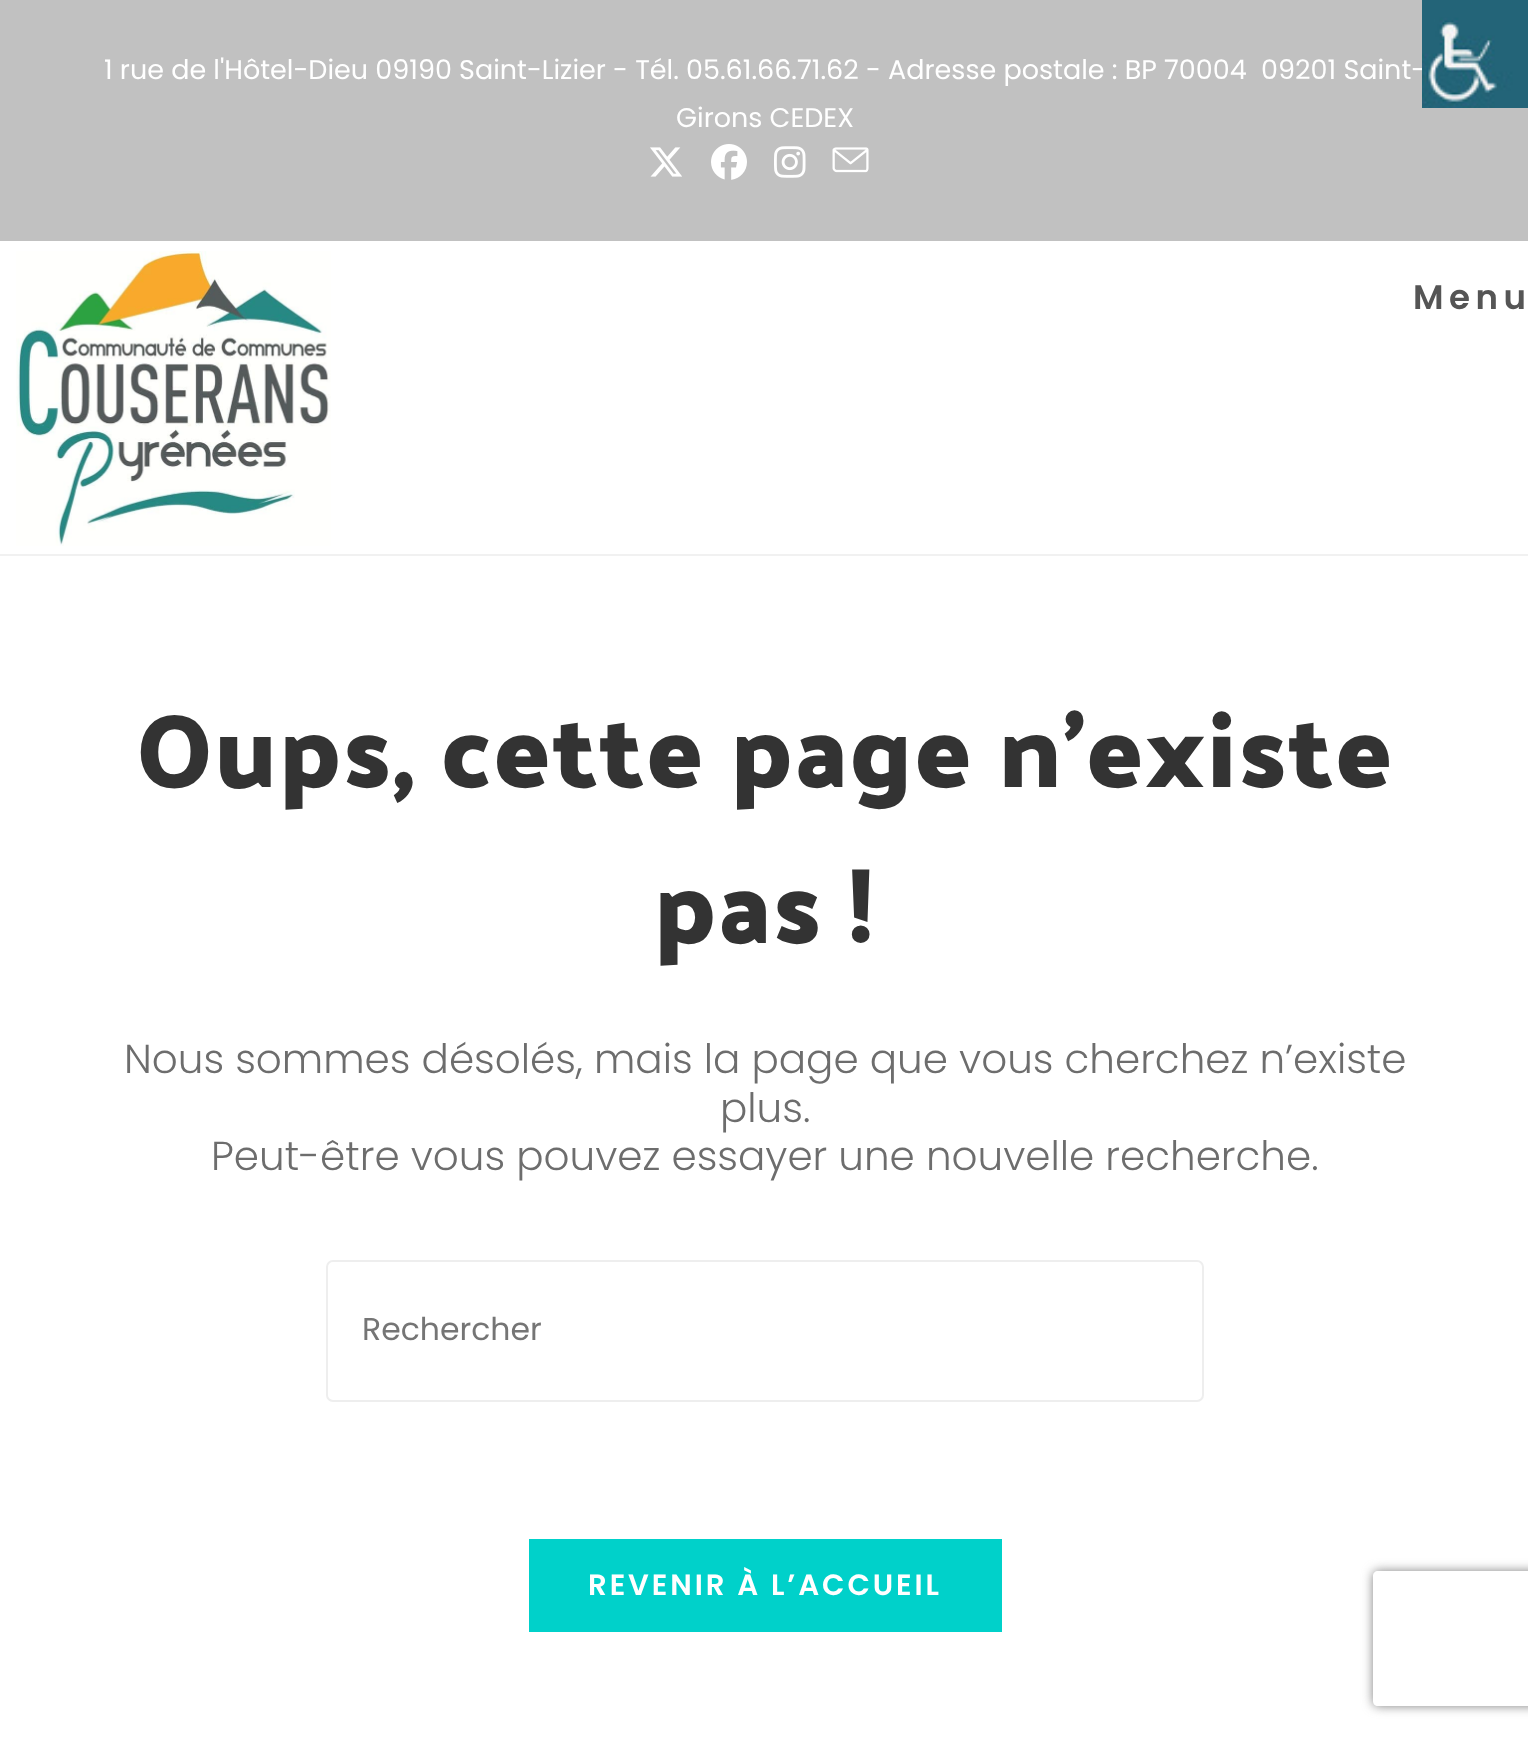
async function draw(canvas) {
  canvas.width = 1528
  canvas.height = 1737
  const ctx = canvas.getContext('2d')
  ctx.miterLimit = 4
  ctx.fontKerning = 'normal'
  async function loadImage(src) {
    const img = new Image()
    img.src = src
    await img.decode()
    return img
  }

  ctx.fillStyle = '#fff'
  ctx.fillRect(0, 0, 1528, 1737)
  ctx.fillStyle = '#c1c1c1'
  ctx.fillRect(0, 0, 1528, 241)
  ctx.font = '27px Poppins'
  ctx.fillStyle = '#fff'
  ctx.fillText('1 rue de l\'Hôtel-Dieu 09190 Saint-Lizier - Tél. 05.61.66.71.62 - Adresse postale : BP 70004  09201 Saint-', 104, 79)
  ctx.drawImage(await loadImage('image0.png'), 1422, 0, 106, 108)
  ctx.fillText('Girons CEDEX', 676, 127)
  ctx.drawImage(await loadImage('image1.png'), 650, 147, 32, 30)
  ctx.drawImage(await loadImage('image2.png'), 711, 144, 36, 36)
  ctx.drawImage(await loadImage('image3.png'), 774, 146, 32, 32)
  ctx.drawImage(await loadImage('image4.png'), 832, 147, 37, 26)
  ctx.fillStyle = '#f1f1f1'
  ctx.fillRect(0, 554, 1528, 2)
  ctx.drawImage(await loadImage('image5.png'), 16, 251, 315, 295)
  ctx.letterSpacing = '5.5px'
  ctx.font = '600 34px Poppins'
  ctx.fillStyle = '#555'
  ctx.fillText('Menu', 1413, 309)
  ctx.letterSpacing = '2px'
  ctx.font = '600 103.5px Palanquin Dark'
  ctx.fillStyle = '#333'
  ctx.fillText('Oups, cette page n’existe', 136, 787)
  ctx.fillText('pas !', 654, 943)
  ctx.letterSpacing = '0px'
  ctx.font = '300 40.5px Poppins'
  ctx.fillStyle = '#6d6d6d'
  ctx.fillText('Nous sommes désolés, mais la page que vous cherchez n’existe', 124, 1073)
  ctx.fillText('plus.', 720, 1122)
  ctx.fillText('Peut-être vous pouvez essayer une nouvelle recherche.', 211, 1170)
  ctx.beginPath()
  ctx.roundRect(327, 1261, 876, 140, 6)
  ctx.strokeStyle = '#eee'
  ctx.lineWidth = 2
  ctx.stroke()
  ctx.font = '31.5px Poppins'
  ctx.fillStyle = '#757575'
  ctx.fillText('Rechercher', 362, 1340)
  ctx.fillStyle = '#00d1ca'
  ctx.fillRect(529, 1539, 473, 93)
  ctx.letterSpacing = '2.9px'
  ctx.font = '600 29.25px Poppins'
  ctx.fillStyle = '#fff'
  ctx.fillText('REVENIR À L’ACCUEIL', 588, 1595)
  ctx.save()
  ctx.beginPath()
  ctx.moveTo(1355, 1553)
  ctx.lineTo(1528, 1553)
  ctx.lineTo(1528, 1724)
  ctx.lineTo(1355, 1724)
  ctx.closePath()
  ctx.moveTo(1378, 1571)
  ctx.lineTo(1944, 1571)
  ctx.bezierCurveTo(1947, 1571, 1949, 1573, 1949, 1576)
  ctx.lineTo(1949, 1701)
  ctx.bezierCurveTo(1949, 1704, 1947, 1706, 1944, 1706)
  ctx.lineTo(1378, 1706)
  ctx.bezierCurveTo(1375, 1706, 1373, 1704, 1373, 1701)
  ctx.lineTo(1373, 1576)
  ctx.bezierCurveTo(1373, 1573, 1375, 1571, 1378, 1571)
  ctx.closePath()
  ctx.clip('evenodd')
  ctx.fillStyle = '#808080'
  ctx.filter = 'blur(5.5px)'
  ctx.beginPath()
  ctx.roundRect(1373, 1571, 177, 135, 5)
  ctx.fill()
  ctx.filter = 'none'
  ctx.restore()
}

draw(document.querySelector('canvas'))
